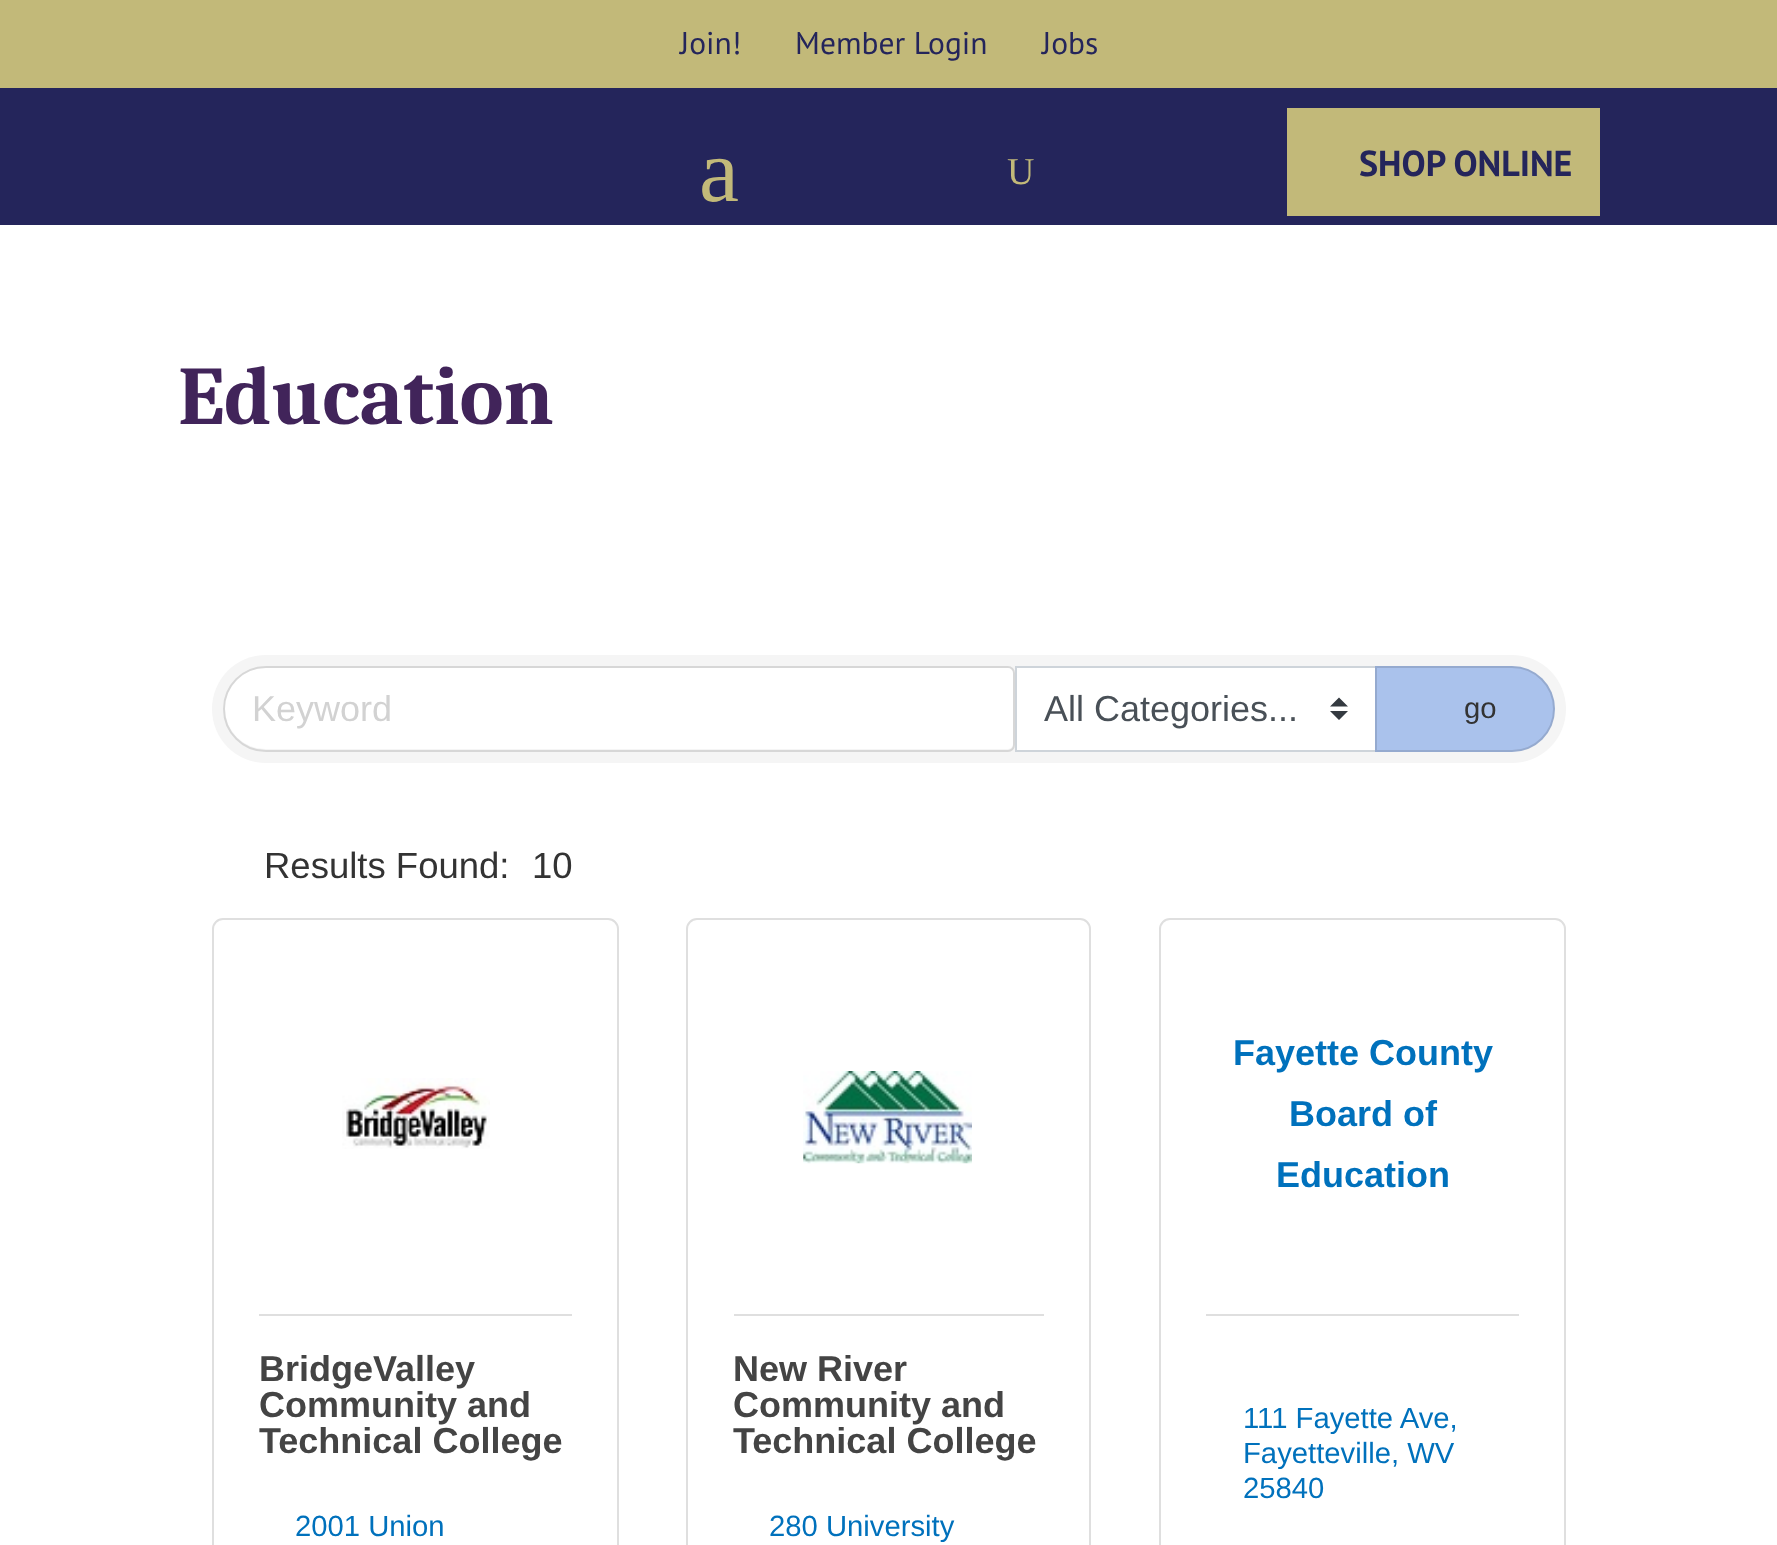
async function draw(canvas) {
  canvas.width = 1777
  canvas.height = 1545
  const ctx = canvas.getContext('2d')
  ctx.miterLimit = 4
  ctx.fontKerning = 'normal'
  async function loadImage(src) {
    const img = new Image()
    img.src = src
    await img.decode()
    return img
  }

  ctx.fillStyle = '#fff'
  ctx.fillRect(0, 0, 1777, 1545)
  ctx.fillStyle = '#c2b979'
  ctx.fillRect(0, 0, 1777, 88)
  ctx.font = '31.5px PT Sans'
  ctx.fillStyle = '#24255b'
  ctx.fillText('Join!', 680, 54)
  ctx.fillText('Member Login', 795, 54)
  ctx.fillText('Jobs', 1042, 54)
  ctx.fillRect(0, 88, 1777, 137)
  ctx.font = '90px Liberation Serif'
  ctx.fillStyle = '#c2b979'
  ctx.fillText('a', 699, 201)
  ctx.font = '38px Liberation Serif'
  ctx.fillText('U', 1007, 184)
  ctx.fillRect(1287, 108, 313, 108)
  ctx.font = 'bold 36px PT Sans'
  ctx.fillStyle = '#24255b'
  ctx.fillText('SHOP ONLINE', 1359, 176)
  ctx.font = 'bold 83.25px Caladea'
  ctx.fillStyle = '#41245a'
  ctx.fillText('Education', 178, 424)
  ctx.fillStyle = '#f5f5f5'
  ctx.beginPath()
  ctx.roundRect(212, 655, 1354, 108, 54)
  ctx.fill()
  ctx.fillStyle = '#fff'
  ctx.beginPath()
  ctx.roundRect(225, 668, 788, 81, [40.5, 5, 5, 40.5])
  ctx.fill()
  ctx.beginPath()
  ctx.roundRect(224, 667, 790, 84, [42, 6, 6, 42])
  ctx.strokeStyle = '#0000001f'
  ctx.lineWidth = 2
  ctx.stroke()
  ctx.font = '36px Liberation Sans'
  ctx.fillStyle = '#d2d2d2'
  ctx.fillText('Keyword', 252, 721)
  ctx.fillStyle = '#fff'
  ctx.fillRect(1017, 668, 358, 82)
  ctx.fillStyle = '#343a40'
  ctx.beginPath()
  ctx.moveTo(1339, 697.5)
  ctx.lineTo(1330, 706.5)
  ctx.lineTo(1348, 706.5)
  ctx.closePath()
  ctx.moveTo(1339, 720)
  ctx.lineTo(1330, 711)
  ctx.lineTo(1348, 711)
  ctx.closePath()
  ctx.fill()
  ctx.strokeStyle = '#ced4da'
  ctx.strokeRect(1016, 667, 360, 84)
  ctx.fillStyle = '#495057'
  ctx.fillText('All Categories...', 1044, 721)
  ctx.fillStyle = '#aac2ec'
  ctx.beginPath()
  ctx.roundRect(1375, 666, 180, 86, [0, 43, 43, 0])
  ctx.fill()
  ctx.beginPath()
  ctx.roundRect(1376, 667, 178, 84, [0, 42, 42, 0])
  ctx.strokeStyle = '#0000001f'
  ctx.stroke()
  ctx.font = '29.25px Liberation Sans'
  ctx.fillStyle = '#333'
  ctx.fillText('go', 1464, 718)
  ctx.font = '36.5px Liberation Sans'
  ctx.fillText('Results Found:', 264, 878)
  ctx.fillText('10', 532, 878)
  ctx.beginPath()
  ctx.roundRect(213, 919, 405, 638, 10)
  ctx.strokeStyle = '#dfdfdf'
  ctx.stroke()
  ctx.drawImage(await loadImage('image0.png'), 342, 1078, 148, 71)
  ctx.fillStyle = '#dfdfdf'
  ctx.fillRect(259, 1314, 313, 2)
  ctx.font = 'bold 36px Liberation Sans'
  ctx.fillStyle = '#444'
  ctx.fillText('BridgeValley', 259, 1381)
  ctx.fillText('Community and', 259, 1417)
  ctx.fillText('Technical College', 259, 1453)
  ctx.font = '29.25px Liberation Sans'
  ctx.fillStyle = '#0071bc'
  ctx.fillText('2001 Union', 295, 1536)
  ctx.beginPath()
  ctx.roundRect(687, 919, 403, 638, 10)
  ctx.stroke()
  ctx.drawImage(await loadImage('image1.png'), 803, 1071, 169, 93)
  ctx.fillStyle = '#dfdfdf'
  ctx.fillRect(734, 1314, 310, 2)
  ctx.font = 'bold 36px Liberation Sans'
  ctx.fillStyle = '#444'
  ctx.fillText('New River', 733, 1381)
  ctx.fillText('Community and', 733, 1417)
  ctx.fillText('Technical College', 733, 1453)
  ctx.font = '29.25px Liberation Sans'
  ctx.fillStyle = '#0071bc'
  ctx.fillText('280 University', 769, 1536)
  ctx.beginPath()
  ctx.roundRect(1160, 919, 405, 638, 10)
  ctx.stroke()
  ctx.font = 'bold 36px Liberation Sans'
  ctx.fillText('Fayette County', 1233, 1065)
  ctx.fillText('Board of', 1289, 1126)
  ctx.fillText('Education', 1276, 1187)
  ctx.fillStyle = '#dfdfdf'
  ctx.fillRect(1206, 1314, 313, 2)
  ctx.font = '29.25px Liberation Sans'
  ctx.fillStyle = '#0071bc'
  ctx.fillText('111 Fayette Ave,', 1243, 1428)
  ctx.fillText('Fayetteville, WV', 1243, 1463)
  ctx.fillText('25840', 1243, 1498)
}

draw(document.querySelector('canvas'))
